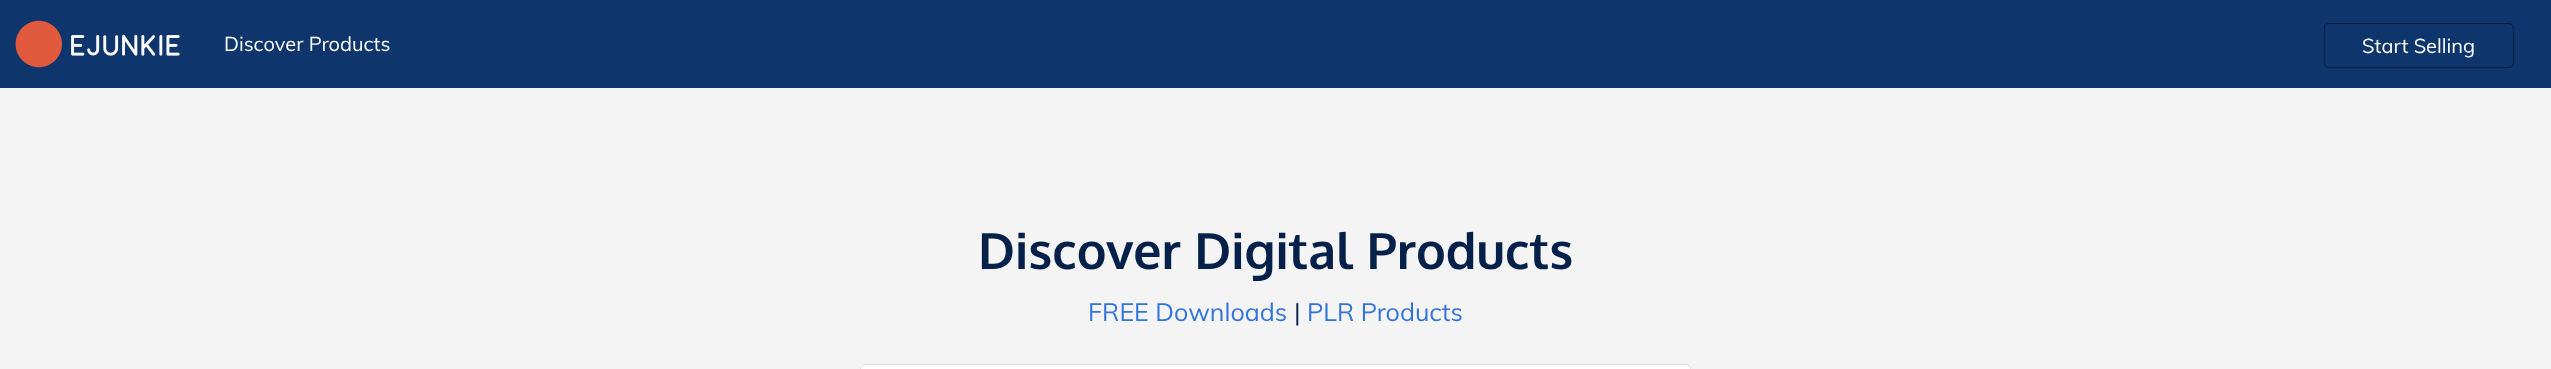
async function draw(canvas) {
  canvas.width = 2551
  canvas.height = 369
  const ctx = canvas.getContext('2d')
  ctx.miterLimit = 4
  ctx.fontKerning = 'normal'
  async function loadImage(src) {
    const img = new Image()
    img.src = src
    await img.decode()
    return img
  }

  ctx.fillStyle = '#f4f4f4'
  ctx.fillRect(0, 0, 2551, 369)
  ctx.fillStyle = '#0f356d'
  ctx.fillRect(0, 0, 2551, 88)
  ctx.drawImage(await loadImage('image0.png'), 15, 20, 165, 48)
  ctx.font = '20px Muli'
  ctx.fillStyle = '#fff'
  ctx.fillText('Discover Products', 224, 51)
  ctx.beginPath()
  ctx.roundRect(2324.5, 23.5, 189, 44, 4.5)
  ctx.strokeStyle = '#031a3a'
  ctx.stroke()
  ctx.fillText('Start Selling', 2362, 53)
  ctx.font = 'bold 50px Oxygen'
  ctx.fillStyle = '#052149'
  ctx.fillText('Discover Digital Products', 978, 269)
  ctx.font = '25px Muli'
  ctx.fillStyle = '#3273dc'
  ctx.fillText('FREE Downloads', 1088, 321)
  ctx.fillStyle = '#052149'
  ctx.fillText('|', 1294, 321)
  ctx.fillStyle = '#3273dc'
  ctx.fillText('PLR Products', 1307, 321)
  ctx.fillStyle = '#fff'
  ctx.beginPath()
  ctx.roundRect(860.5, 364.5, 830, 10, 4.5)
  ctx.fill()
  ctx.strokeStyle = '#e0e0e0'
  ctx.stroke()
}

draw(document.querySelector('canvas'))
